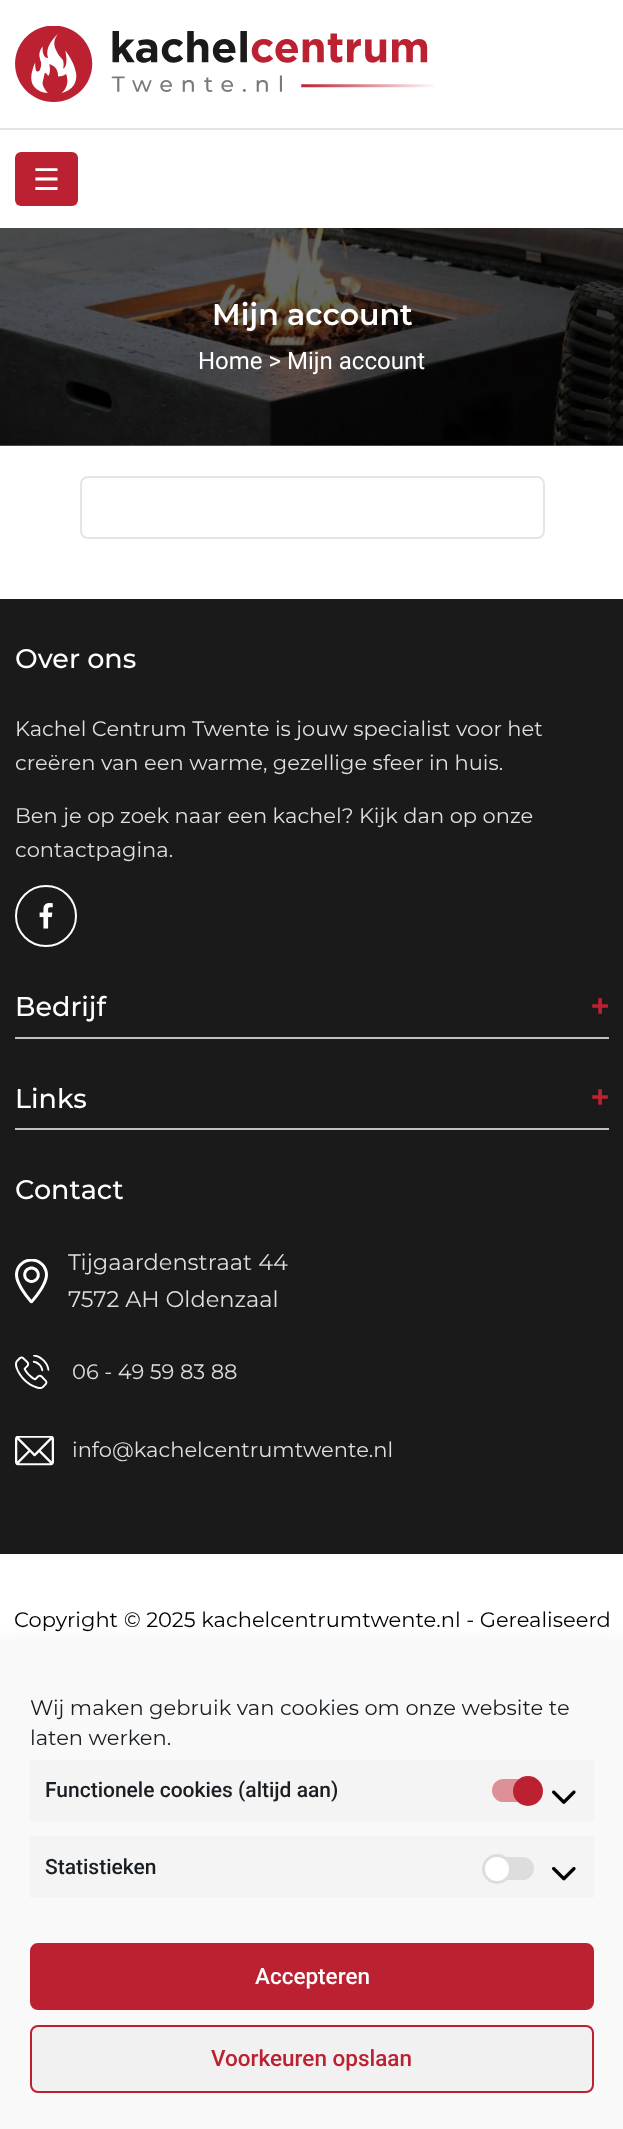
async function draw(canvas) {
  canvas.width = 623
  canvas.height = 2129
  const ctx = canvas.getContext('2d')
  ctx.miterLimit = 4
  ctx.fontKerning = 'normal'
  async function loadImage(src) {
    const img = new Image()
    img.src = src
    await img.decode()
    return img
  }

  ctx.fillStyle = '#fff'
  ctx.fillRect(0, 0, 623, 2129)
  ctx.fillStyle = '#e5e5e5'
  ctx.fillRect(0, 128, 623, 2)
  ctx.drawImage(await loadImage('image0.png'), 15, 26, 420, 76)
  ctx.fillStyle = '#bc2131'
  ctx.beginPath()
  ctx.roundRect(15, 152, 63, 54, 6)
  ctx.fill()
  ctx.font = '30px DejaVu Sans'
  ctx.fillStyle = '#fff'
  ctx.fillText('☰', 33, 190)
  ctx.drawImage(await loadImage('image1.png'), 0, 228, 623, 218)
  ctx.drawImage(await loadImage('image2.png'), 0, 251, 623, 195)
  ctx.font = '600 30px Montserrat'
  ctx.fillText('Mijn account', 212, 325)
  ctx.font = '24px Roboto'
  ctx.fillText('Home > Mijn account', 198, 369)
  ctx.beginPath()
  ctx.roundRect(81, 477, 463, 61, 7)
  ctx.strokeStyle = '#e5e5e5'
  ctx.lineWidth = 2
  ctx.stroke()
  ctx.fillStyle = '#1a1a1a'
  ctx.fillRect(0, 599, 623, 955)
  ctx.font = '500 27px Montserrat'
  ctx.fillStyle = '#fff'
  ctx.fillText('Over ons', 15, 668)
  ctx.font = '21px Montserrat'
  ctx.fillStyle = '#dfdfdf'
  ctx.fillText('Kachel Centrum Twente is jouw specialist voor het', 15, 736)
  ctx.fillText('creëren van een warme, gezellige sfeer in huis.', 15, 770)
  ctx.fillText('Ben je op zoek naar een kachel? Kijk dan op onze', 15, 823)
  ctx.fillText('contactpagina.', 15, 857)
  ctx.beginPath()
  ctx.arc(46, 916, 30, 0, 2 * Math.PI)
  ctx.strokeStyle = '#fff'
  ctx.stroke()
  ctx.drawImage(await loadImage('image3.png'), 39, 903, 14, 26)
  ctx.fillStyle = '#c0c0c0'
  ctx.fillRect(15, 1037, 594, 2)
  ctx.font = '500 27px Montserrat'
  ctx.fillStyle = '#fff'
  ctx.fillText('Bedrijf', 15, 1016)
  ctx.font = 'bold 33px Montserrat'
  ctx.fillStyle = '#bc2131'
  ctx.fillText('+', 590, 1018)
  ctx.fillStyle = '#c0c0c0'
  ctx.fillRect(15, 1128, 594, 2)
  ctx.font = '500 27px Montserrat'
  ctx.fillStyle = '#fff'
  ctx.fillText('Links', 15, 1108)
  ctx.font = 'bold 33px Montserrat'
  ctx.fillStyle = '#bc2131'
  ctx.fillText('+', 590, 1109)
  ctx.font = '500 27px Montserrat'
  ctx.fillStyle = '#fff'
  ctx.fillText('Contact', 15, 1199)
  ctx.drawImage(await loadImage('image4.png'), 15, 1259, 33, 45)
  ctx.font = '22.5px Montserrat'
  ctx.fillStyle = '#dfdfdf'
  ctx.fillText('Tijgaardenstraat 44', 68, 1270)
  ctx.fillText('7572 AH Oldenzaal', 68, 1307)
  ctx.drawImage(await loadImage('image5.png'), 15, 1355, 35, 34)
  ctx.font = '21px Montserrat'
  ctx.fillText('06 - 49 59 83 88', 72, 1379)
  ctx.drawImage(await loadImage('image6.png'), 15, 1436, 39, 30)
  ctx.fillText('info@kachelcentrumtwente.nl', 72, 1457)
  ctx.fillStyle = '#000'
  ctx.fillText('Copyright © 2025 kachelcentrumtwente.nl - Gerealiseerd', 14, 1627)
  ctx.fillStyle = '#00000030'
  ctx.filter = 'blur(15px)'
  ctx.beginPath()
  ctx.rect(0, 1655, 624, 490)
  ctx.fill()
  ctx.filter = 'none'
  ctx.fillStyle = '#f9f9f9'
  ctx.fillRect(0, 1641, 623, 488)
  ctx.fillStyle = '#191e23'
  ctx.fillText('Wij maken gebruik van cookies om onze website te', 30, 1715)
  ctx.fillText('laten werken.', 30, 1745)
  ctx.fillStyle = '#f4f4f4'
  ctx.fillRect(30, 1760, 564, 61)
  ctx.font = '500 21px Roboto'
  ctx.fillStyle = '#191e23'
  ctx.fillText('Functionele cookies (altijd aan)', 45, 1797)
  ctx.fillStyle = '#dd9098'
  ctx.beginPath()
  ctx.roundRect(492, 1779, 42, 23, 11.5)
  ctx.fill()
  ctx.fillStyle = '#bc2131'
  ctx.beginPath()
  ctx.arc(528, 1791, 13.5, 0, 2 * Math.PI)
  ctx.fill()
  ctx.strokeStyle = '#bc2131'
  ctx.lineWidth = 3
  ctx.stroke()
  ctx.drawImage(await loadImage('image7.png'), 552, 1790, 24, 14)
  ctx.fillStyle = '#f4f4f4'
  ctx.fillRect(30, 1836, 564, 62)
  ctx.fillStyle = '#191e23'
  ctx.fillText('Statistieken', 45, 1874)
  ctx.fillStyle = '#ddd'
  ctx.beginPath()
  ctx.roundRect(492, 1857, 42, 23, 11.5)
  ctx.fill()
  ctx.fillStyle = '#fff'
  ctx.beginPath()
  ctx.arc(497, 1869, 13.5, 0, 2 * Math.PI)
  ctx.fill()
  ctx.strokeStyle = '#ddd'
  ctx.stroke()
  ctx.drawImage(await loadImage('image8.png'), 552, 1867, 24, 14)
  ctx.fillStyle = '#bc2131'
  ctx.beginPath()
  ctx.roundRect(31, 1944, 562, 65, 7)
  ctx.fill()
  ctx.strokeStyle = '#bc2131'
  ctx.lineWidth = 2
  ctx.stroke()
  ctx.font = '500 22.5px Roboto'
  ctx.fillStyle = '#fff'
  ctx.fillText('Accepteren', 255, 1984)
  ctx.fillStyle = '#f1f1f1'
  ctx.beginPath()
  ctx.roundRect(31, 2026, 562, 66, 7)
  ctx.fill()
  ctx.stroke()
  ctx.fillStyle = '#bc2131'
  ctx.fillText('Voorkeuren opslaan', 211, 2066)
}

draw(document.querySelector('canvas'))
